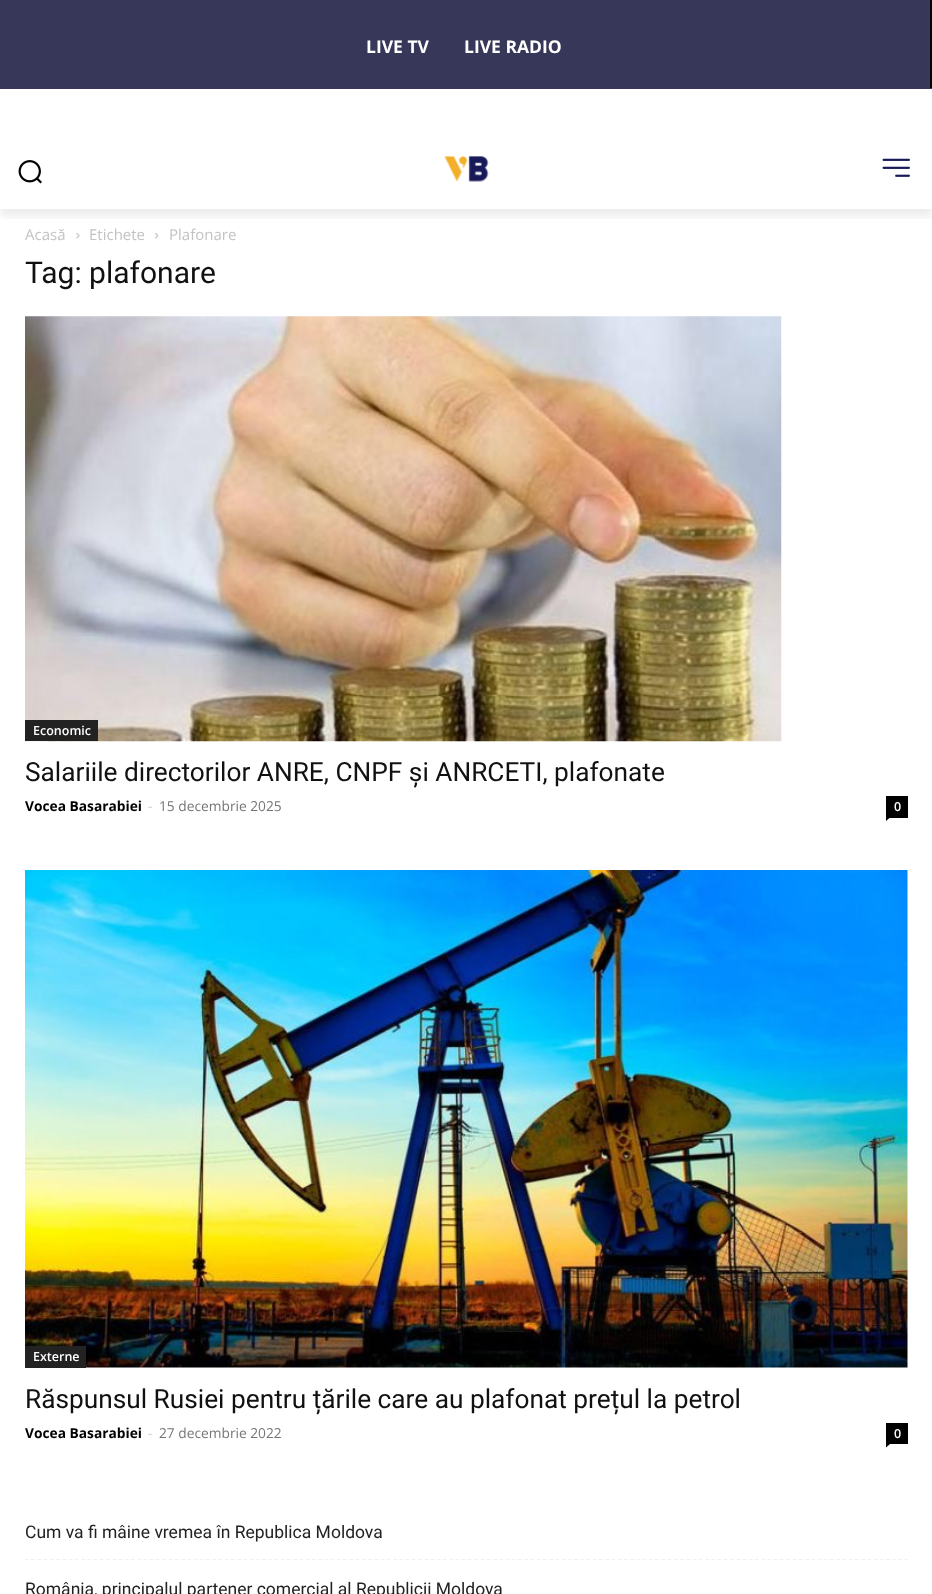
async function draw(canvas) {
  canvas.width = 932
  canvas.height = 1594
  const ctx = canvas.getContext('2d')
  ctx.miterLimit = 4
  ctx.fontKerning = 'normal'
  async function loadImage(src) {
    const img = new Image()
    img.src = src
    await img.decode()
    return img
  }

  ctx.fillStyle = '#fff'
  ctx.fillRect(0, 0, 932, 1594)
  ctx.fillStyle = '#373759'
  ctx.fillRect(0, 0, 930, 88)
  ctx.fillStyle = '#000'
  ctx.fillRect(930, 0, 2, 88)
  ctx.fillStyle = '#373759'
  ctx.fillRect(0, 88, 932, 1)
  ctx.drawImage(await loadImage('image0.png'), 18, 160, 24, 24)
  ctx.drawImage(await loadImage('image1.png'), 444, 156, 45, 26)
  ctx.drawImage(await loadImage('image2.png'), 882, 158, 28, 19)
  ctx.save()
  ctx.beginPath()
  ctx.rect(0, 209, 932, 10)
  ctx.clip()
  ctx.fillStyle = '#00000014'
  ctx.filter = 'blur(5px)'
  ctx.beginPath()
  ctx.rect(0, 8, 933, 208)
  ctx.fill()
  ctx.filter = 'none'
  ctx.restore()
  ctx.font = 'bold 17.5px Open Sans'
  ctx.fillStyle = '#fff'
  ctx.fillText('LIVE TV', 366, 53)
  ctx.fillText('LIVE RADIO', 464, 53)
  ctx.font = '15px Open Sans'
  ctx.fillStyle = '#c3c3c3'
  ctx.fillText('Acasă', 25, 240)
  ctx.drawImage(await loadImage('image3.png'), 76, 232, 4, 7)
  ctx.fillText('Etichete', 89, 240)
  ctx.drawImage(await loadImage('image4.png'), 155, 232, 4, 7)
  ctx.fillText('Plafonare', 169, 240)
  ctx.font = '30px Roboto'
  ctx.fillStyle = '#111'
  ctx.fillText('Tag: plafonare', 25, 283)
  ctx.drawImage(await loadImage('image5.png'), 25, 316, 757, 426)
  ctx.fillStyle = '#222'
  ctx.fillRect(25, 720, 73, 21)
  ctx.font = '600 12.5px Open Sans'
  ctx.fillStyle = '#fff'
  ctx.fillText('Economic', 33, 735)
  ctx.font = '26.25px Roboto'
  ctx.fillStyle = '#111'
  ctx.fillText('Salariile directorilor ANRE, CNPF și ANRCETI, plafonate', 25, 781)
  ctx.font = 'bold 13.75px Open Sans'
  ctx.fillStyle = '#000'
  ctx.fillText('Vocea Basarabiei', 25, 811)
  ctx.font = '13.75px Open Sans'
  ctx.fillStyle = '#ccc'
  ctx.fillText('-', 148, 811)
  ctx.fillStyle = '#767676'
  ctx.fillText('15 decembrie 2025', 159, 811)
  ctx.fillStyle = '#000'
  ctx.fillRect(886, 796, 22, 22)
  ctx.font = '600 12.5px Open Sans'
  ctx.fillStyle = '#fff'
  ctx.fillText('0', 894, 811)
  ctx.fillStyle = '#000'
  ctx.beginPath()
  ctx.moveTo(886, 817.5)
  ctx.lineTo(890, 817.5)
  ctx.lineTo(886, 821)
  ctx.closePath()
  ctx.fill()
  ctx.drawImage(await loadImage('image6.png'), 25, 870, 883, 498)
  ctx.fillStyle = '#222'
  ctx.fillRect(25, 1346, 61, 22)
  ctx.fillStyle = '#fff'
  ctx.fillText('Externe', 33, 1361)
  ctx.font = '26.25px Roboto'
  ctx.fillStyle = '#111'
  ctx.fillText('Răspunsul Rusiei pentru țările care au plafonat prețul la petrol', 25, 1408)
  ctx.font = 'bold 13.75px Open Sans'
  ctx.fillStyle = '#000'
  ctx.fillText('Vocea Basarabiei', 25, 1438)
  ctx.font = '13.75px Open Sans'
  ctx.fillStyle = '#ccc'
  ctx.fillText('-', 148, 1438)
  ctx.fillStyle = '#767676'
  ctx.fillText('27 decembrie 2022', 159, 1438)
  ctx.fillStyle = '#000'
  ctx.fillRect(886, 1423, 22, 21)
  ctx.font = '600 12.5px Open Sans'
  ctx.fillStyle = '#fff'
  ctx.fillText('0', 894, 1438)
  ctx.fillStyle = '#000'
  ctx.beginPath()
  ctx.moveTo(886, 1444)
  ctx.lineTo(890, 1444)
  ctx.lineTo(886, 1447.5)
  ctx.closePath()
  ctx.fill()
  ctx.beginPath()
  ctx.moveTo(25, 1559.5)
  ctx.lineTo(907.5, 1559.5)
  ctx.strokeStyle = '#f1f1f1'
  ctx.lineWidth = 1.2
  ctx.setLineDash([3.75, 2.49])
  ctx.stroke()
  ctx.font = '17.5px Roboto'
  ctx.fillStyle = '#222'
  ctx.fillText('Cum va fi mâine vremea în Republica Moldova', 25, 1538)
  ctx.fillText('România, principalul partener comercial al Republicii Moldova', 25, 1595)
}

draw(document.querySelector('canvas'))
